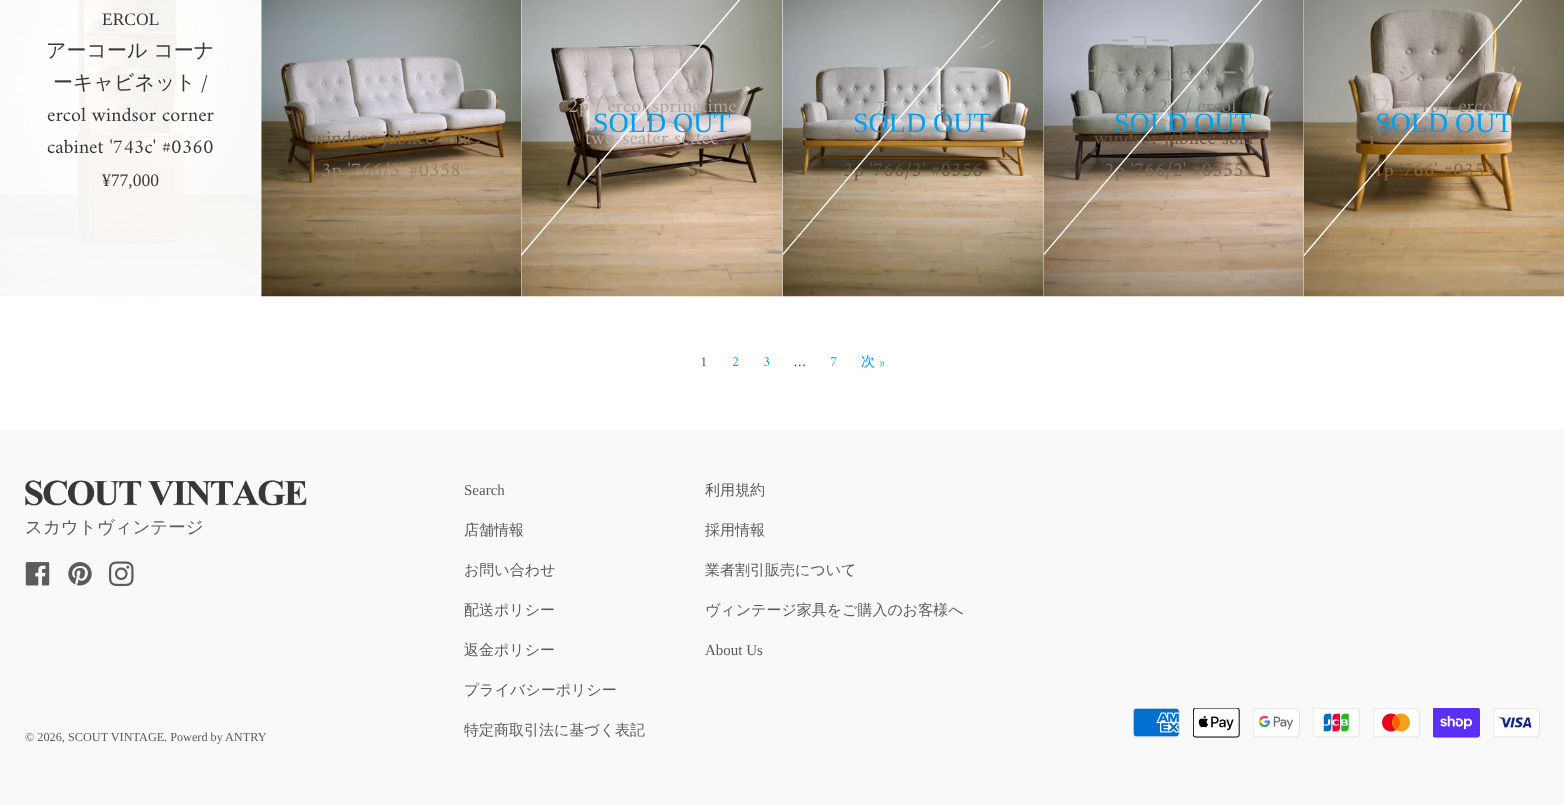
async function draw(canvas) {
  canvas.width = 1564
  canvas.height = 805
  const ctx = canvas.getContext('2d')
  ctx.miterLimit = 4
  ctx.fontKerning = 'normal'
  async function loadImage(src) {
    const img = new Image()
    img.src = src
    await img.decode()
    return img
  }

  ctx.fillStyle = '#fff'
  ctx.fillRect(0, 0, 1564, 805)
  ctx.drawImage(await loadImage('image0.png'), 0, 0, 261, 296)
  ctx.font = '17.5px Liberation Serif'
  ctx.fillStyle = '#383738'
  ctx.fillText('ERCOL', 102, 25)
  ctx.font = '500 20px WenQuanYi Zen Hei'
  ctx.fillText('アーコール コーナ', 46, 57)
  ctx.fillText('ーキャビネット', 53, 89)
  ctx.font = '20px Amiri'
  ctx.fillText('/', 201, 89)
  ctx.fillText('ercol windsor corner', 47, 121)
  ctx.fillText('cabinet \'743c\' #0360', 47, 153)
  ctx.font = '17.5px Liberation Serif'
  ctx.fillText('¥77,000', 102, 186)
  ctx.drawImage(await loadImage('image1.png'), 261, 0, 261, 297)
  ctx.font = '20px Amiri'
  ctx.fillStyle = '#806440'
  ctx.fillText('windsor jubilee sofa', 312, 144)
  ctx.fillStyle = '#978064'
  ctx.fillText('3p \'766/3\' #0358', 321, 176)
  ctx.drawImage(await loadImage('image2.png'), 521, 0, 262, 297)
  ctx.fillStyle = '#aea5a1'
  ctx.fillText('2p / ercol springtime', 568, 112)
  ctx.fillStyle = '#b2a29b'
  ctx.fillText('two-seater settee', 585, 144)
  ctx.fillStyle = '#5e4d38'
  ctx.fillText('5', 688, 176)
  ctx.save()
  ctx.beginPath()
  ctx.rect(521, 0, 262, 296)
  ctx.clip()
  ctx.fillStyle = '#fff'
  ctx.beginPath()
  ctx.moveTo(817, -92)
  ctx.lineTo(818, -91)
  ctx.lineTo(483, 301)
  ctx.lineTo(482, 300)
  ctx.closePath()
  ctx.fill()
  ctx.restore()
  ctx.font = '28px Liberation Serif'
  ctx.fillStyle = '#009fed'
  ctx.fillText('SOLD OUT', 593, 132)
  ctx.drawImage(await loadImage('image3.png'), 782, 0, 262, 297)
  ctx.font = '500 20px WenQuanYi Zen Hei'
  ctx.fillStyle = '#aaaeae'
  ctx.fillText('ン', 977, 48)
  ctx.fillStyle = '#b2b0b1'
  ctx.fillText('ー', 957, 80)
  ctx.fillStyle = '#aba9a8'
  ctx.fillText('ァ', 871, 112)
  ctx.font = '20px Amiri'
  ctx.fillStyle = '#c4c3c4'
  ctx.fillText('e', 936, 112)
  ctx.fillStyle = '#665840'
  ctx.fillText('3p \'766/3\' #0356', 843, 176)
  ctx.save()
  ctx.beginPath()
  ctx.rect(783, 0, 261, 296)
  ctx.clip()
  ctx.fillStyle = '#fff'
  ctx.beginPath()
  ctx.moveTo(1078, -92)
  ctx.lineTo(1079, -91)
  ctx.lineTo(744, 301)
  ctx.lineTo(743, 300)
  ctx.closePath()
  ctx.fill()
  ctx.restore()
  ctx.font = '28px Liberation Serif'
  ctx.fillStyle = '#009fed'
  ctx.fillText('SOLD OUT', 853, 132)
  ctx.drawImage(await loadImage('image4.png'), 1043, 0, 261, 297)
  ctx.font = '500 20px WenQuanYi Zen Hei'
  ctx.fillStyle = '#aaaeae'
  ctx.fillText('ーコー', 1110, 48)
  ctx.fillStyle = '#90938b'
  ctx.fillText('ザー ジュビリーソ', 1089, 80)
  ctx.font = '20px Amiri'
  ctx.fillStyle = '#7e827a'
  ctx.fillText('2p / ercol', 1158, 112)
  ctx.fillStyle = '#68523f'
  ctx.fillText('windsor jubilee sofa', 1094, 144)
  ctx.fillStyle = '#7a6855'
  ctx.fillText('2p \'766/2\' #0355', 1104, 176)
  ctx.save()
  ctx.beginPath()
  ctx.rect(1044, 0, 260, 296)
  ctx.clip()
  ctx.fillStyle = '#fff'
  ctx.beginPath()
  ctx.moveTo(1339, -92)
  ctx.lineTo(1340, -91)
  ctx.lineTo(1005, 301)
  ctx.lineTo(1004, 300)
  ctx.closePath()
  ctx.fill()
  ctx.restore()
  ctx.font = '28px Liberation Serif'
  ctx.fillStyle = '#009fed'
  ctx.fillText('SOLD OUT', 1114, 132)
  ctx.drawImage(await loadImage('image5.png'), 1303, 0, 261, 297)
  ctx.font = '500 20px WenQuanYi Zen Hei'
  ctx.fillStyle = '#a29a91'
  ctx.fillText('ジ', 1397, 80)
  ctx.fillText('ソ', 1498, 80)
  ctx.fillStyle = '#c2b9b3'
  ctx.fillText('ファ', 1372, 112)
  ctx.font = '20px Amiri'
  ctx.fillStyle = '#90867c'
  ctx.fillText('1p / ercol', 1419, 112)
  ctx.fillStyle = '#896f52'
  ctx.fillText('i', 1369, 144)
  ctx.fillStyle = '#87663a'
  ctx.fillText('1p \'766\' #0354', 1373, 176)
  ctx.save()
  ctx.beginPath()
  ctx.rect(1304, 0, 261, 296)
  ctx.clip()
  ctx.fillStyle = '#fff'
  ctx.beginPath()
  ctx.moveTo(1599, -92)
  ctx.lineTo(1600, -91)
  ctx.lineTo(1266, 301)
  ctx.lineTo(1265, 300)
  ctx.closePath()
  ctx.fill()
  ctx.restore()
  ctx.font = '28px Liberation Serif'
  ctx.fillStyle = '#009fed'
  ctx.fillText('SOLD OUT', 1375, 132)
  ctx.font = '14px Amiri'
  ctx.fillStyle = '#525052'
  ctx.fillText('1', 700, 366)
  ctx.fillStyle = '#009fed'
  ctx.fillText('2', 732, 366)
  ctx.fillText('3', 763, 366)
  ctx.fillStyle = '#383738'
  ctx.fillText('…', 794, 366)
  ctx.fillStyle = '#009fed'
  ctx.fillText('7', 830, 366)
  ctx.font = '500 14px WenQuanYi Zen Hei'
  ctx.fillText('次', 861, 366)
  ctx.font = '14px Amiri'
  ctx.fillText('»', 879, 366)
  ctx.fillStyle = '#f9f9f9'
  ctx.fillRect(0, 430, 1564, 375)
  ctx.drawImage(await loadImage('image6.png'), 25, 480, 282, 26)
  ctx.font = '500 17.5px WenQuanYi Zen Hei'
  ctx.fillStyle = '#5c5c5c'
  ctx.fillText('スカウトヴィンテージ', 25, 533)
  ctx.drawImage(await loadImage('image7.png'), 25, 562, 25, 24)
  ctx.drawImage(await loadImage('image8.png'), 68, 562, 24, 24)
  ctx.drawImage(await loadImage('image9.png'), 108, 561, 26, 26)
  ctx.font = '12.25px Liberation Serif'
  ctx.fillText('© 2026, SCOUT VINTAGE', 25, 741)
  ctx.fillText('. Powerd by', 164, 741)
  ctx.fillText('ANTRY', 225, 741)
  ctx.font = '15px Liberation Serif'
  ctx.fillText('Search', 464, 495)
  ctx.font = '500 15px WenQuanYi Zen Hei'
  ctx.fillText('利用規約', 705, 495)
  ctx.fillText('店舗情報', 464, 535)
  ctx.fillText('採用情報', 705, 535)
  ctx.fillText('お問い合わせ', 464, 575)
  ctx.fillText('業者割引販売について', 705, 575)
  ctx.fillText('配送ポリシー', 464, 615)
  ctx.fillText('ヴィンテージ家具をご購入のお客様へ', 705, 615)
  ctx.fillText('返金ポリシー', 464, 655)
  ctx.font = '15px Liberation Serif'
  ctx.fillText('About Us', 705, 655)
  ctx.font = '500 15px WenQuanYi Zen Hei'
  ctx.fillText('プライバシーポリシー', 464, 695)
  ctx.fillText('特定商取引法に基づく表記', 464, 735)
  ctx.drawImage(await loadImage('image10.png'), 1133, 708, 47, 30)
  ctx.drawImage(await loadImage('image11.png'), 1193, 708, 47, 30)
  ctx.drawImage(await loadImage('image12.png'), 1253, 708, 47, 30)
  ctx.drawImage(await loadImage('image13.png'), 1313, 708, 47, 30)
  ctx.drawImage(await loadImage('image14.png'), 1373, 708, 47, 30)
  ctx.drawImage(await loadImage('image15.png'), 1433, 708, 47, 30)
  ctx.drawImage(await loadImage('image16.png'), 1493, 708, 47, 30)
}

draw(document.querySelector('canvas'))
